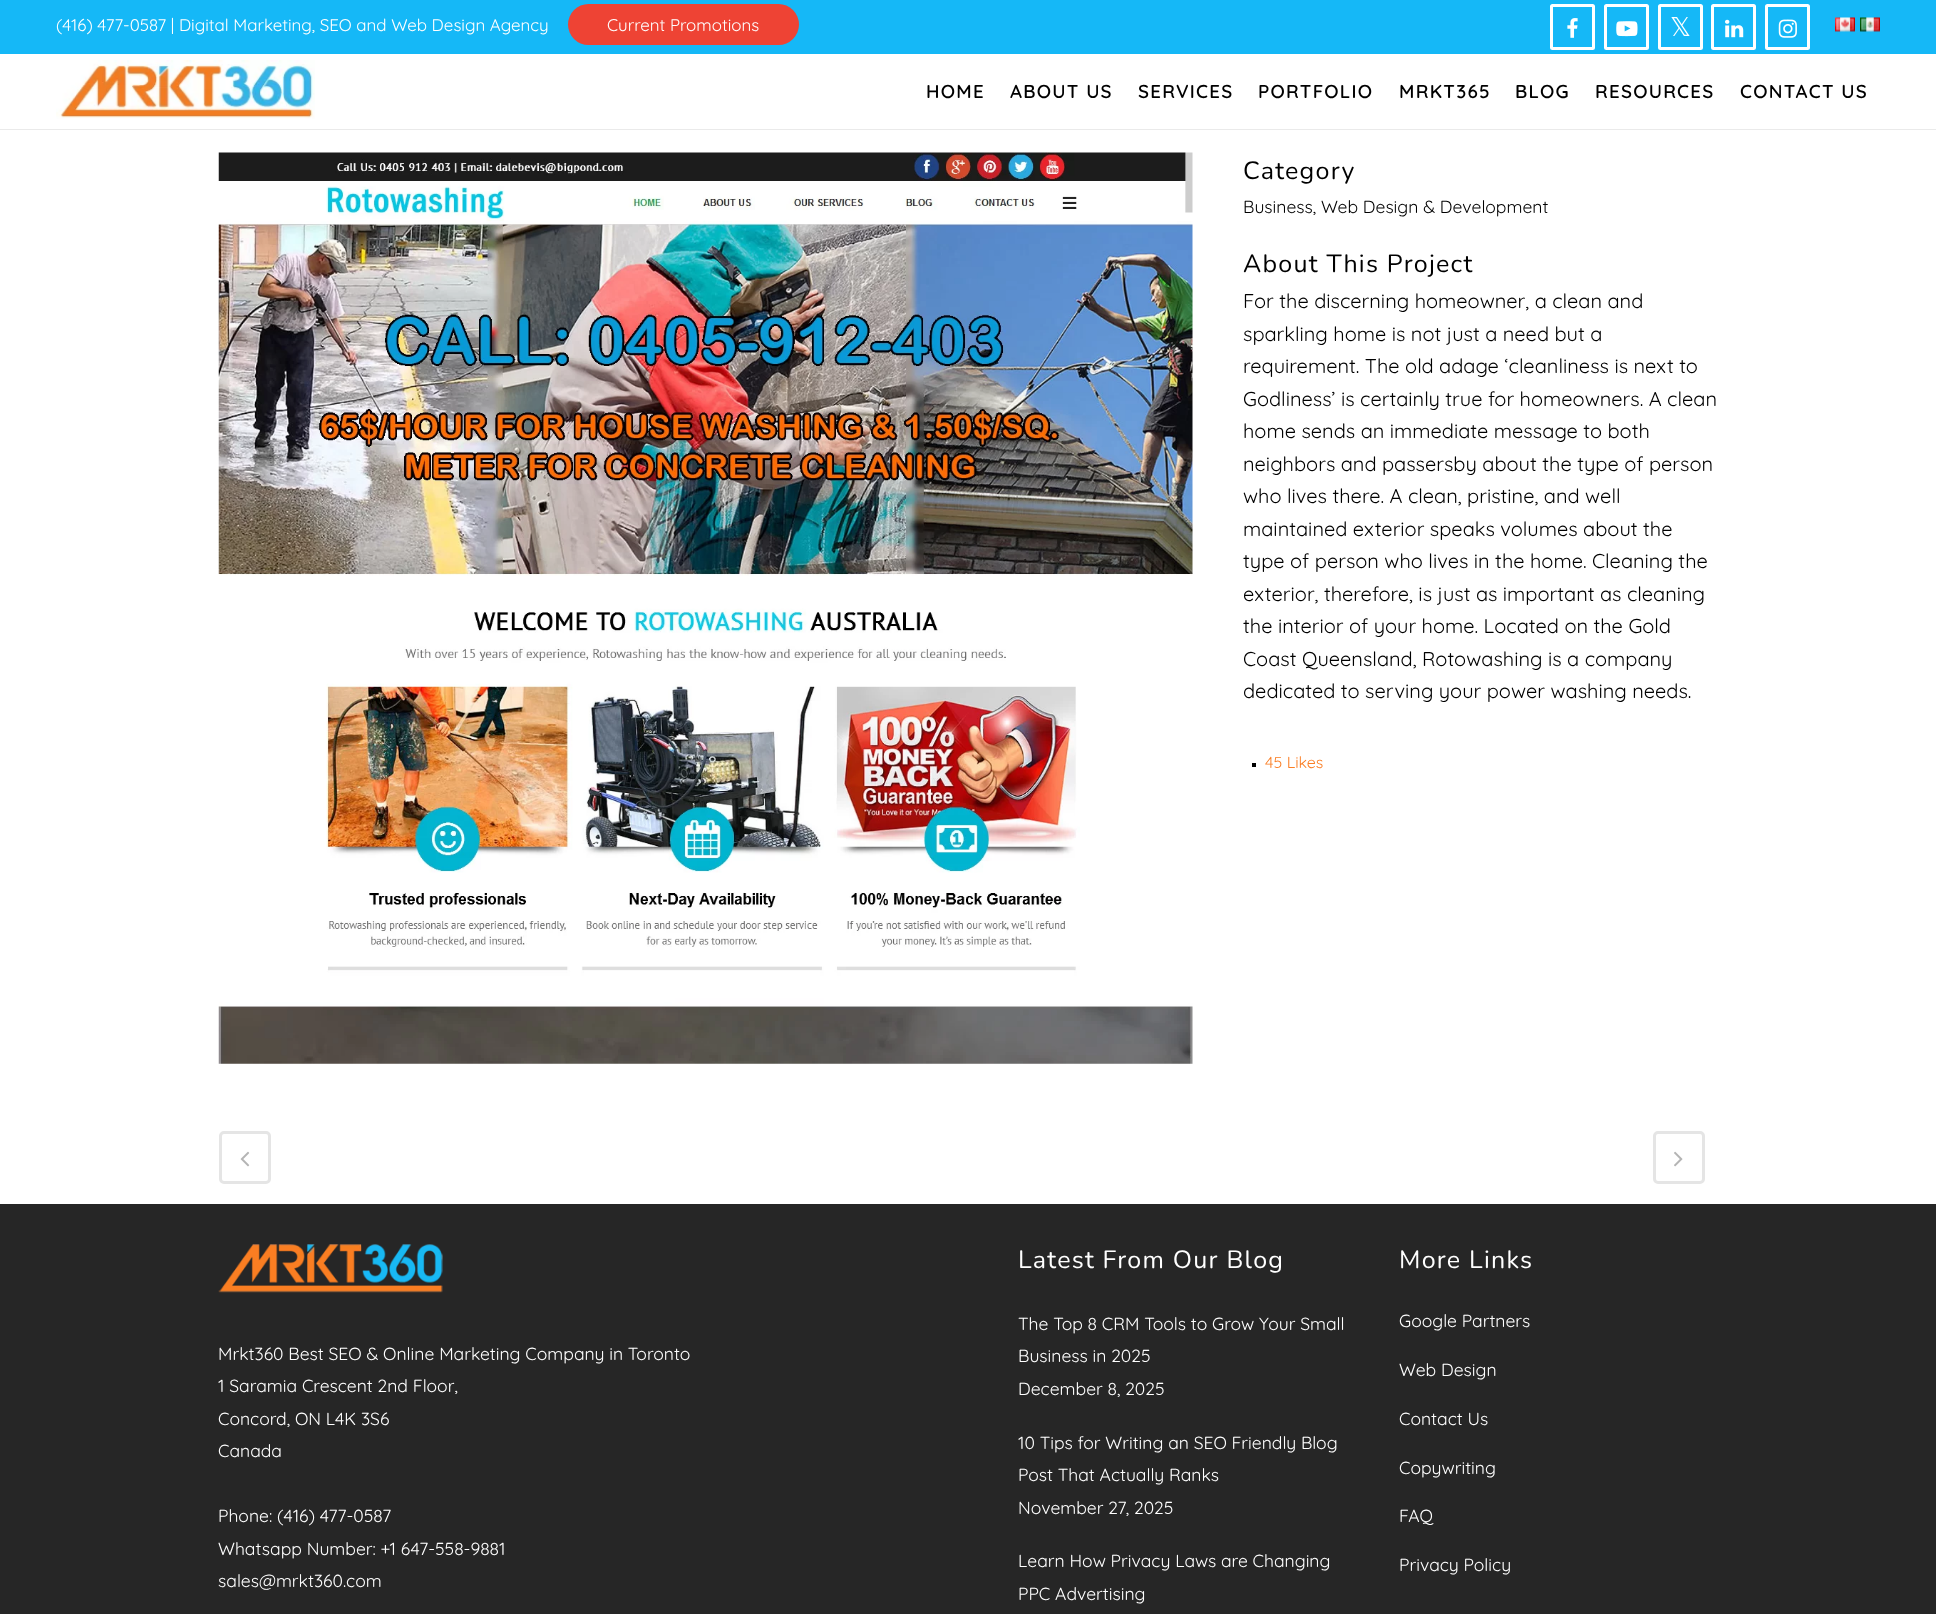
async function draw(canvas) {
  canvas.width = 1936
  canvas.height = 1614
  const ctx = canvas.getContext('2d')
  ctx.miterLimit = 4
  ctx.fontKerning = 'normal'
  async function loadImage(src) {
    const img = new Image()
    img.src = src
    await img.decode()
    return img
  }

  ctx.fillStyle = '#fff'
  ctx.fillRect(0, 0, 1936, 1614)
  ctx.fillStyle = '#15b8f7'
  ctx.fillRect(0, 0, 1936, 54)
  ctx.font = '16.9px Quicksand'
  ctx.fillStyle = '#fff'
  ctx.fillText('(416) 477-0587 | Digital Marketing, SEO and Web Design Agency', 56, 31)
  ctx.fillStyle = '#ee4334'
  ctx.beginPath()
  ctx.roundRect(568, 4, 231, 41, 20.5)
  ctx.fill()
  ctx.fillStyle = '#fff'
  ctx.fillText('Current Promotions', 607, 31)
  ctx.beginPath()
  ctx.roundRect(1551.5, 5.5, 42, 43, 1)
  ctx.strokeStyle = '#fff'
  ctx.lineWidth = 3
  ctx.stroke()
  ctx.drawImage(await loadImage('image0.png'), 1567, 18, 11, 20)
  ctx.beginPath()
  ctx.roundRect(1605.5, 5.5, 42, 43, 1)
  ctx.stroke()
  ctx.drawImage(await loadImage('image1.png'), 1616, 21, 22, 16)
  ctx.beginPath()
  ctx.roundRect(1659.5, 5.5, 42, 43, 1)
  ctx.stroke()
  ctx.font = '26px DejaVu Sans'
  ctx.fillText('𝕏', 1670, 36)
  ctx.beginPath()
  ctx.roundRect(1712.5, 5.5, 42, 43, 1)
  ctx.stroke()
  ctx.drawImage(await loadImage('image2.png'), 1725, 19, 19, 19)
  ctx.beginPath()
  ctx.roundRect(1766.5, 5.5, 42, 43, 1)
  ctx.stroke()
  ctx.drawImage(await loadImage('image3.png'), 1778, 19, 19, 19)
  ctx.drawImage(await loadImage('image4.png'), 1835, 17, 20, 15)
  ctx.drawImage(await loadImage('image5.png'), 1860, 17, 20, 15)
  ctx.fillStyle = '#eaeaea'
  ctx.fillRect(0, 129, 1936, 1)
  ctx.drawImage(await loadImage('image6.png'), 56, 60, 259, 59)
  ctx.letterSpacing = '1.25px'
  ctx.font = '600 18.75px Quicksand'
  ctx.fillStyle = '#000'
  ctx.fillText('HOME', 926, 98)
  ctx.fillText('ABOUT US', 1010, 98)
  ctx.fillText('SERVICES', 1138, 98)
  ctx.fillText('PORTFOLIO', 1258, 98)
  ctx.fillText('MRKT365', 1399, 98)
  ctx.fillText('BLOG', 1515, 98)
  ctx.fillText('RESOURCES', 1595, 98)
  ctx.fillText('CONTACT US', 1740, 98)
  ctx.drawImage(await loadImage('image7.png'), 218, 152, 975, 912)
  ctx.font = '25px Nunito'
  ctx.fillText('Category', 1243, 179)
  ctx.letterSpacing = '0px'
  ctx.font = '17.5px Quicksand'
  ctx.fillText('Business, Web Design & Development', 1243, 213)
  ctx.letterSpacing = '1.25px'
  ctx.font = '25px Nunito'
  ctx.fillText('About This Project', 1243, 272)
  ctx.letterSpacing = '0px'
  ctx.font = '20px Quicksand'
  ctx.fillText('For the discerning homeowner, a clean and', 1243, 308)
  ctx.fillText('sparkling home is not just a need but a', 1243, 341)
  ctx.fillText('requirement. The old adage ‘cleanliness is next to', 1243, 373)
  ctx.fillText('Godliness’ is certainly true for homeowners. A clean', 1243, 406)
  ctx.fillText('home sends an immediate message to both', 1243, 438)
  ctx.fillText('neighbors and passersby about the type of person', 1243, 471)
  ctx.fillText('who lives there. A clean, pristine, and well', 1243, 503)
  ctx.fillText('maintained exterior speaks volumes about the', 1243, 536)
  ctx.fillText('type of person who lives in the home. Cleaning the', 1243, 568)
  ctx.fillText('exterior, therefore, is just as important as cleaning', 1243, 601)
  ctx.fillText('the interior of your home. Located on the Gold', 1243, 633)
  ctx.fillText('Coast Queensland, Rotowashing is a company', 1243, 666)
  ctx.fillText('dedicated to serving your power washing needs.', 1243, 698)
  ctx.fillRect(1252, 763, 4, 4)
  ctx.font = '16px Quicksand'
  ctx.fillStyle = '#fa7e24'
  ctx.fillText('45 Likes', 1265, 768)
  ctx.beginPath()
  ctx.roundRect(220.5, 1132.5, 49, 50, 3.5)
  ctx.strokeStyle = '#e5e5e5'
  ctx.stroke()
  ctx.drawImage(await loadImage('image8.png'), 240, 1151, 10, 16)
  ctx.beginPath()
  ctx.roundRect(1654.5, 1132.5, 49, 50, 3.5)
  ctx.stroke()
  ctx.drawImage(await loadImage('image9.png'), 1674, 1151, 9, 16)
  ctx.fillStyle = '#262626'
  ctx.fillRect(0, 1204, 1936, 410)
  ctx.drawImage(await loadImage('image10.png'), 218, 1244, 225, 49)
  ctx.font = '17.5px Quicksand'
  ctx.fillStyle = '#fff'
  ctx.fillText('Mrkt360 Best SEO & Online Marketing Company in Toronto', 218, 1360)
  ctx.fillText('1 Saramia Crescent 2nd Floor,', 218, 1392)
  ctx.fillText('Concord, ON L4K 3S6', 218, 1425)
  ctx.fillText('Canada', 218, 1457)
  ctx.fillText('Phone: (416) 477-0587', 218, 1522)
  ctx.fillText('Whatsapp Number: +1 647-558-9881', 218, 1555)
  ctx.fillText('sales@mrkt360.com', 218, 1587)
  ctx.letterSpacing = '1.25px'
  ctx.font = '25px Nunito'
  ctx.fillText('Latest From Our Blog', 1018, 1268)
  ctx.letterSpacing = '0px'
  ctx.font = '17.5px Quicksand'
  ctx.fillText('The Top 8 CRM Tools to Grow Your Small', 1018, 1330)
  ctx.fillText('Business in 2025', 1018, 1362)
  ctx.fillText('December 8, 2025', 1018, 1395)
  ctx.fillText('10 Tips for Writing an SEO Friendly Blog', 1018, 1449)
  ctx.fillText('Post That Actually Ranks', 1018, 1481)
  ctx.fillText('November 27, 2025', 1018, 1514)
  ctx.fillText('Learn How Privacy Laws are Changing', 1018, 1567)
  ctx.fillText('PPC Advertising', 1018, 1600)
  ctx.letterSpacing = '1.25px'
  ctx.font = '25px Nunito'
  ctx.fillText('More Links', 1399, 1268)
  ctx.letterSpacing = '0px'
  ctx.font = '17.5px Quicksand'
  ctx.fillText('Google Partners', 1399, 1327)
  ctx.fillText('Web Design', 1399, 1376)
  ctx.fillText('Contact Us', 1399, 1425)
  ctx.fillText('Copywriting', 1399, 1474)
  ctx.fillText('FAQ', 1399, 1522)
  ctx.fillText('Privacy Policy', 1399, 1571)
}

draw(document.querySelector('canvas'))
